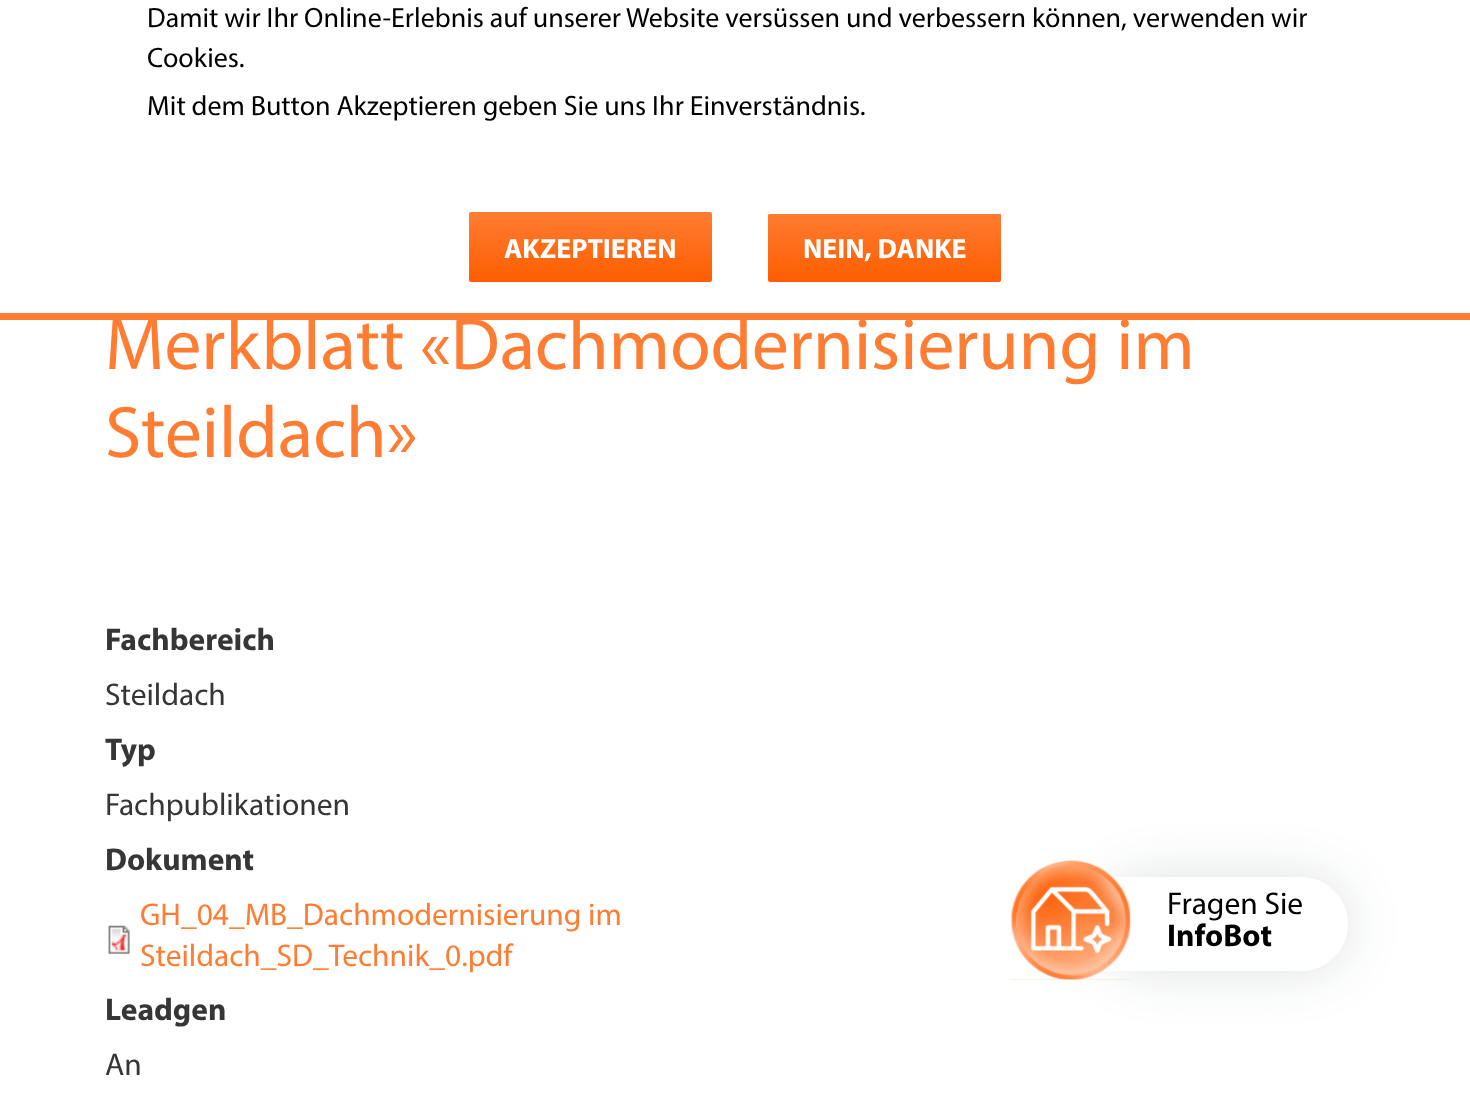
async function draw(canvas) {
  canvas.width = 1470
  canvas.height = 1120
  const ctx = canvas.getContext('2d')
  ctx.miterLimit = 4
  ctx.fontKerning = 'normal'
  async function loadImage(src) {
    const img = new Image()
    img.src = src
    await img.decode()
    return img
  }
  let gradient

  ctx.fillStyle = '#fff'
  ctx.fillRect(0, 0, 1470, 1120)
  ctx.fillStyle = '#ff7d32'
  ctx.fillRect(0, 313, 1470, 7)
  ctx.font = '28px Myriad'
  ctx.fillStyle = '#000'
  ctx.fillText('Damit wir Ihr Online-Erlebnis auf unserer Website versüssen und verbessern können, verwenden wir', 147, 27)
  ctx.fillText('Cookies.', 147, 67)
  ctx.fillText('Mit dem Button Akzeptieren geben Sie uns Ihr Einverständnis.', 147, 115)
  gradient = ctx.createLinearGradient(591, 212, 591, 282)
  gradient.addColorStop(0, '#ff7d32')
  gradient.addColorStop(1, '#fe5d00')
  ctx.fillStyle = gradient
  ctx.beginPath()
  ctx.roundRect(469, 212, 243, 70, 2)
  ctx.fill()
  ctx.font = 'bold 28px Myriad'
  ctx.fillStyle = '#fff'
  ctx.fillText('AKZEPTIEREN', 504, 258)
  gradient = ctx.createLinearGradient(885, 212, 885, 282)
  gradient.addColorStop(0, '#ff7d32')
  gradient.addColorStop(1, '#fe5d00')
  ctx.fillStyle = gradient
  ctx.beginPath()
  ctx.roundRect(768, 212, 233, 70, 2)
  ctx.fill()
  ctx.fillStyle = '#fff'
  ctx.beginPath()
  ctx.moveTo(770, 214)
  ctx.lineTo(999, 214)
  ctx.bezierCurveTo(1000, 214, 1001, 214, 1001, 215)
  ctx.bezierCurveTo(1001, 214, 1001, 212, 999, 212)
  ctx.lineTo(770, 212)
  ctx.lineTo(768, 213)
  ctx.lineTo(768, 215)
  ctx.bezierCurveTo(768, 214, 769, 214, 770, 214)
  ctx.closePath()
  ctx.fill()
  ctx.fillText('NEIN, DANKE', 803, 258)
  ctx.font = '73.5px Myriad'
  ctx.fillStyle = '#ff7d32'
  ctx.fillText('Merkblatt «Dachmodernisierung im', 105, 369)
  ctx.fillText('Steildach»', 105, 457)
  ctx.font = 'bold 31.5px Myriad'
  ctx.fillStyle = '#363636'
  ctx.fillText('Fachbereich', 105, 650)
  ctx.font = '31.5px Myriad'
  ctx.fillText('Steildach', 105, 705)
  ctx.font = 'bold 31.5px Myriad'
  ctx.fillText('Typ', 105, 760)
  ctx.font = '31.5px Myriad'
  ctx.fillText('Fachpublikationen', 105, 815)
  ctx.font = 'bold 31.5px Myriad'
  ctx.fillText('Dokument', 105, 870)
  ctx.drawImage(await loadImage('image0.png'), 108, 925, 22, 29)
  ctx.font = '31.5px Myriad'
  ctx.fillStyle = '#ff7d32'
  ctx.fillText('GH_04_MB_Dachmodernisierung im', 140, 925)
  ctx.fillText('Steildach_SD_Technik_0.pdf', 140, 966)
  ctx.font = 'bold 31.5px Myriad'
  ctx.fillStyle = '#363636'
  ctx.fillText('Leadgen', 105, 1020)
  ctx.font = '31.5px Myriad'
  ctx.fillText('An', 105, 1075)
  ctx.fillStyle = '#10281f21'
  ctx.filter = 'blur(26px)'
  ctx.beginPath()
  ctx.roundRect(1101, 875, 248, 98, 49)
  ctx.fill()
  ctx.filter = 'none'
  ctx.fillStyle = '#fff'
  ctx.beginPath()
  ctx.roundRect(1103, 877, 245, 94, [0, 47, 47, 0])
  ctx.fill()
  ctx.drawImage(await loadImage('image1.png'), 1011, 860, 120, 120)
  ctx.fillStyle = '#000'
  ctx.fillText('Fragen Sie', 1167, 914)
  ctx.font = 'bold 31.5px Myriad'
  ctx.fillText('InfoBot', 1167, 946)
}

draw(document.querySelector('canvas'))
